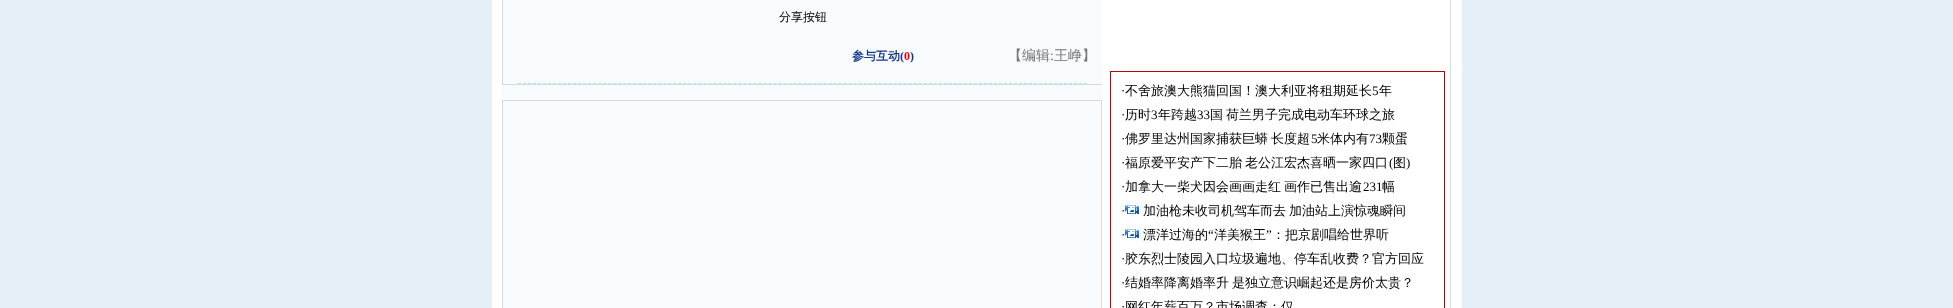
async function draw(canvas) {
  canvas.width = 1953
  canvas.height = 308
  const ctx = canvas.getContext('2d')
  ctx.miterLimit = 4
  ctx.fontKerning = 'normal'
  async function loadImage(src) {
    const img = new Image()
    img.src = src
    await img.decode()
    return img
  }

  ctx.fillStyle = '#e5eff8'
  ctx.fillRect(0, 0, 1953, 308)
  ctx.fillStyle = '#fff'
  ctx.fillRect(492, 0, 970, 308)
  ctx.fillStyle = '#d9d9d9'
  ctx.fillRect(1450, 0, 1, 308)
  ctx.fillStyle = '#f7fbfe'
  ctx.fillRect(502, 0, 600, 308)
  ctx.fillStyle = '#d9d9d9'
  ctx.fillRect(502, 84, 600, 1)
  ctx.fillRect(502, 0, 1, 85)
  ctx.font = '500 12px WenQuanYi Zen Hei'
  ctx.fillStyle = '#000'
  ctx.fillText('分享按钮', 779, 21)
  ctx.font = 'bold 12px WenQuanYi Zen Hei'
  ctx.fillStyle = '#15388a'
  ctx.fillText('参与互动', 852, 60)
  ctx.font = 'bold 12px Liberation Serif'
  ctx.fillText('(', 900, 60)
  ctx.fillStyle = '#f00'
  ctx.fillText('0', 904, 60)
  ctx.fillStyle = '#15388a'
  ctx.fillText(')', 910, 60)
  ctx.font = '500 14px WenQuanYi Zen Hei'
  ctx.fillStyle = '#767676'
  ctx.fillText('【编辑', 1008, 60)
  ctx.font = '14px Liberation Serif'
  ctx.fillText(':', 1050, 60)
  ctx.font = '500 14px WenQuanYi Zen Hei'
  ctx.fillText('王峥】', 1054, 60)
  ctx.beginPath()
  ctx.moveTo(518, 83.5)
  ctx.lineTo(1087, 83.5)
  ctx.strokeStyle = '#bcddfe'
  ctx.setLineDash([3, 2.01])
  ctx.stroke()
  ctx.fillStyle = '#d9d9d9'
  ctx.fillRect(502, 100, 600, 1)
  ctx.fillRect(1101, 100, 1, 208)
  ctx.fillRect(502, 100, 1, 208)
  ctx.strokeStyle = '#ba0305'
  ctx.setLineDash([])
  ctx.strokeRect(1110.5, 71.5, 334, 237)
  ctx.font = '13px Liberation Serif'
  ctx.fillStyle = '#000'
  ctx.fillText('·', 1121, 95)
  ctx.font = '500 13px WenQuanYi Zen Hei'
  ctx.fillText('不舍旅澳大熊猫回国！澳大利亚将租期延长', 1125, 95)
  ctx.font = '13px Liberation Serif'
  ctx.fillText('5', 1372, 95)
  ctx.font = '500 13px WenQuanYi Zen Hei'
  ctx.fillText('年', 1379, 95)
  ctx.font = '13px Liberation Serif'
  ctx.fillText('·', 1121, 119)
  ctx.font = '500 13px WenQuanYi Zen Hei'
  ctx.fillText('历时', 1125, 119)
  ctx.font = '13px Liberation Serif'
  ctx.fillText('3', 1151, 119)
  ctx.font = '500 13px WenQuanYi Zen Hei'
  ctx.fillText('年跨越', 1158, 119)
  ctx.font = '13px Liberation Serif'
  ctx.fillText('33', 1197, 119)
  ctx.wordSpacing = '-1px'
  ctx.font = '500 13px WenQuanYi Zen Hei'
  ctx.fillText('国 荷兰男子完成电动车环球之旅', 1210, 119)
  ctx.wordSpacing = '0px'
  ctx.font = '13px Liberation Serif'
  ctx.fillText('·', 1121, 143)
  ctx.wordSpacing = '-1px'
  ctx.font = '500 13px WenQuanYi Zen Hei'
  ctx.fillText('佛罗里达州国家捕获巨蟒 长度超', 1125, 143)
  ctx.wordSpacing = '0px'
  ctx.font = '13px Liberation Serif'
  ctx.fillText('5', 1311, 143)
  ctx.font = '500 13px WenQuanYi Zen Hei'
  ctx.fillText('米体内有', 1317, 143)
  ctx.font = '13px Liberation Serif'
  ctx.fillText('73', 1369, 143)
  ctx.font = '500 13px WenQuanYi Zen Hei'
  ctx.fillText('颗蛋', 1382, 143)
  ctx.font = '13px Liberation Serif'
  ctx.fillText('·', 1121, 167)
  ctx.wordSpacing = '-1px'
  ctx.font = '500 13px WenQuanYi Zen Hei'
  ctx.fillText('福原爱平安产下二胎 老公江宏杰喜晒一家四口', 1125, 167)
  ctx.wordSpacing = '0px'
  ctx.font = '13px Liberation Serif'
  ctx.fillText('(', 1389, 167)
  ctx.font = '500 13px WenQuanYi Zen Hei'
  ctx.fillText('图', 1393, 167)
  ctx.font = '13px Liberation Serif'
  ctx.fillText(')', 1406, 167)
  ctx.fillText('·', 1121, 191)
  ctx.wordSpacing = '-1px'
  ctx.font = '500 13px WenQuanYi Zen Hei'
  ctx.fillText('加拿大一柴犬因会画画走红 画作已售出逾', 1125, 191)
  ctx.wordSpacing = '0px'
  ctx.font = '13px Liberation Serif'
  ctx.fillText('231', 1363, 191)
  ctx.font = '500 13px WenQuanYi Zen Hei'
  ctx.fillText('幅', 1382, 191)
  ctx.font = '13px Liberation Serif'
  ctx.fillText('·', 1121, 215)
  ctx.drawImage(await loadImage('image0.png'), 1125, 205, 14, 9)
  ctx.wordSpacing = '-1px'
  ctx.font = '500 13px WenQuanYi Zen Hei'
  ctx.fillText('加油枪未收司机驾车而去 加油站上演惊魂瞬间', 1143, 215)
  ctx.drawImage(await loadImage('image0.png'), 1125, 229, 14, 9)
  ctx.wordSpacing = '0px'
  ctx.fillText('漂洋过海的', 1143, 239)
  ctx.font = '13px Liberation Serif'
  ctx.fillText('“', 1208, 239)
  ctx.font = '500 13px WenQuanYi Zen Hei'
  ctx.fillText('洋美猴王', 1214, 239)
  ctx.font = '13px Liberation Serif'
  ctx.fillText('”', 1266, 239)
  ctx.font = '500 13px WenQuanYi Zen Hei'
  ctx.fillText('：把京剧唱给世界听', 1272, 239)
  ctx.font = '13px Liberation Serif'
  ctx.fillText('·', 1121, 239)
  ctx.fillText('·', 1121, 263)
  ctx.font = '500 13px WenQuanYi Zen Hei'
  ctx.fillText('胶东烈士陵园入口垃圾遍地、停车乱收费？官方回应', 1125, 263)
  ctx.font = '13px Liberation Serif'
  ctx.fillText('·', 1121, 287)
  ctx.wordSpacing = '-1px'
  ctx.font = '500 13px WenQuanYi Zen Hei'
  ctx.fillText('结婚率降离婚率升 是独立意识崛起还是房价太贵？', 1125, 287)
  ctx.wordSpacing = '0px'
  ctx.font = '13px Liberation Serif'
  ctx.fillText('·', 1121, 311)
  ctx.font = '500 13px WenQuanYi Zen Hei'
  ctx.fillText('网红年薪百万？市场调查：仅', 1125, 311)
}

draw(document.querySelector('canvas'))
